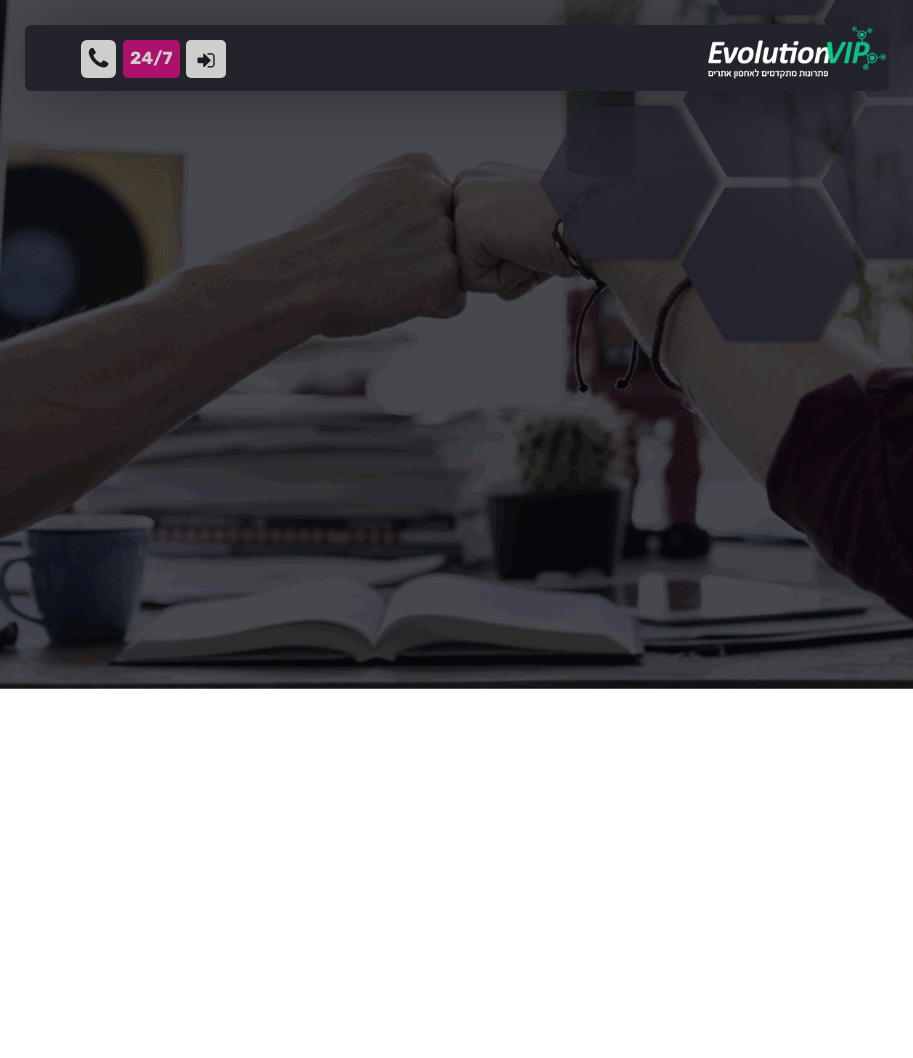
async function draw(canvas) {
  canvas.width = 913
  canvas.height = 1058
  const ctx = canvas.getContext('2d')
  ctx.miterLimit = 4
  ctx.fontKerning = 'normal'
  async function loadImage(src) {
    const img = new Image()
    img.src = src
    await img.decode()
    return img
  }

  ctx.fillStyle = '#fff'
  ctx.fillRect(0, 0, 913, 1058)
  ctx.drawImage(await loadImage('image0.png'), 0, 0, 913, 689)
  ctx.drawImage(await loadImage('image1.png'), 539, 0, 374, 344)
  ctx.fillStyle = '#000'
  ctx.filter = 'blur(34.5px)'
  ctx.beginPath()
  ctx.rect(46, 49, 822, 24)
  ctx.fill()
  ctx.filter = 'none'
  ctx.fillStyle = '#23232c'
  ctx.beginPath()
  ctx.roundRect(25, 25, 864, 66, 6)
  ctx.fill()
  ctx.fillStyle = '#cececc'
  ctx.beginPath()
  ctx.roundRect(81, 40, 35, 38, 6)
  ctx.fill()
  ctx.drawImage(await loadImage('image2.png'), 88, 47, 21, 21)
  ctx.fillStyle = '#ad116d'
  ctx.beginPath()
  ctx.roundRect(123, 40, 57, 38, 5)
  ctx.fill()
  ctx.font = 'bold 17.5px Rubik'
  ctx.fillStyle = '#cececc'
  ctx.fillText('24/7', 130, 64)
  ctx.beginPath()
  ctx.roundRect(186, 40, 40, 38, 5)
  ctx.fill()
  ctx.drawImage(await loadImage('image3.png'), 197, 53, 18, 15)
  ctx.drawImage(await loadImage('image4.png'), 707, 26, 180, 53)
}

draw(document.querySelector('canvas'))
